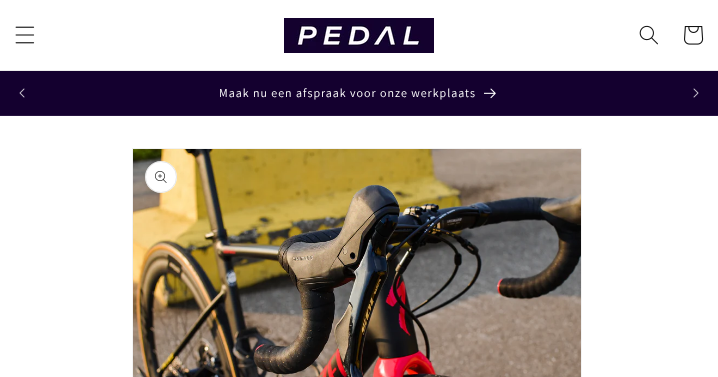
async function draw(canvas) {
  canvas.width = 718
  canvas.height = 377
  const ctx = canvas.getContext('2d')
  ctx.miterLimit = 4
  ctx.fontKerning = 'normal'
  async function loadImage(src) {
    const img = new Image()
    img.src = src
    await img.decode()
    return img
  }

  ctx.fillStyle = '#fff'
  ctx.fillRect(0, 0, 718, 377)
  ctx.fillStyle = '#ececec'
  ctx.fillRect(0, 70, 718, 1)
  ctx.drawImage(await loadImage('image0.png'), 15, 26, 20, 18)
  ctx.drawImage(await loadImage('image1.png'), 284, 18, 150, 35)
  ctx.drawImage(await loadImage('image2.png'), 639, 25, 19, 20)
  ctx.drawImage(await loadImage('image3.png'), 684, 26, 20, 19)
  ctx.fillStyle = '#14002f'
  ctx.fillRect(0, 71, 718, 44)
  ctx.fillStyle = '#271440'
  ctx.fillRect(0, 115, 718, 1)
  ctx.drawImage(await loadImage('image4.png'), 19, 88, 6, 10)
  ctx.letterSpacing = '1px'
  ctx.font = '12px Assistant'
  ctx.fillStyle = '#fff'
  ctx.fillText('Maak nu een afspraak voor onze werkplaats', 219, 97)
  ctx.drawImage(await loadImage('image5.png'), 484, 88, 12, 11)
  ctx.drawImage(await loadImage('image6.png'), 693, 88, 6, 10)
  ctx.strokeStyle = '#f3f3f3'
  ctx.strokeRect(132.5, 148.5, 449, 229)
  ctx.drawImage(await loadImage('image7.png'), 133, 149, 448, 228)
  ctx.beginPath()
  ctx.arc(161, 177, 16, 0, 2 * Math.PI)
  ctx.fill()
  ctx.beginPath()
  ctx.arc(161, 177, 15.5, 0, 2 * Math.PI)
  ctx.strokeStyle = '#1212121a'
  ctx.stroke()
  ctx.drawImage(await loadImage('image8.png'), 155, 171, 12, 12)
}

draw(document.querySelector('canvas'))
